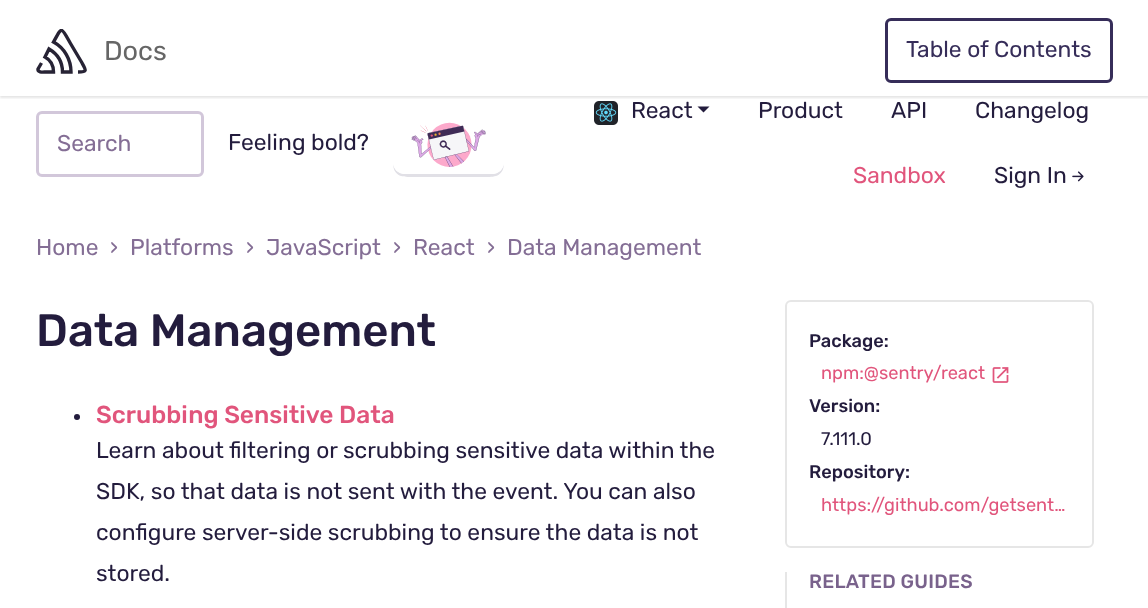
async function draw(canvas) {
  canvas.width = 1148
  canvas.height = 608
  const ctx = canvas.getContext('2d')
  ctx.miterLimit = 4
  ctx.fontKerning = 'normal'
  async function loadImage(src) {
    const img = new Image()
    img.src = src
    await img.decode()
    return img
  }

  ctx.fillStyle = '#fff'
  ctx.fillRect(0, 0, 1148, 608)
  ctx.drawImage(await loadImage('image1.png'), 594, 101, 24, 24)
  ctx.save()
  ctx.beginPath()
  ctx.rect(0, 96, 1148, 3)
  ctx.clip()
  ctx.fillStyle = '#0000001a'
  ctx.filter = 'blur(1px)'
  ctx.beginPath()
  ctx.rect(0, 2, 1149, 96)
  ctx.fill()
  ctx.filter = 'none'
  ctx.restore()
  ctx.save()
  ctx.beginPath()
  ctx.rect(36, 29, 51, 52)
  ctx.clip()
  ctx.beginPath()
  ctx.moveTo(41.5, 63)
  ctx.lineTo(38, 69)
  ctx.bezierCurveTo(37.5, 73, 43.5, 72, 45.5, 72)
  ctx.lineTo(53.5, 72)
  ctx.bezierCurveTo(53.5, 66, 50.5, 60, 45, 57)
  ctx.lineTo(49, 49)
  ctx.bezierCurveTo(57.5, 54, 62.5, 62.5, 62.5, 72)
  ctx.lineTo(71, 72)
  ctx.bezierCurveTo(71, 59.5, 64.5, 48, 53.5, 42)
  ctx.bezierCurveTo(62.5, 26.5, 60.5, 26, 70.5, 43.5)
  ctx.lineTo(81.5, 62)
  ctx.bezierCurveTo(86, 70, 88, 72, 78, 72)
  ctx.strokeStyle = '#272335'
  ctx.lineWidth = 3.4
  ctx.stroke()
  ctx.restore()
  ctx.font = '27px Rubik'
  ctx.fillStyle = '#666'
  ctx.fillText('Docs', 104, 60)
  ctx.beginPath()
  ctx.roundRect(886.5, 19.5, 225, 62, 4.5)
  ctx.strokeStyle = '#362d59'
  ctx.lineWidth = 3
  ctx.stroke()
  ctx.font = '22.8px Rubik'
  ctx.fillStyle = '#362d59'
  ctx.fillText('Table of Contents', 906, 57)
  ctx.beginPath()
  ctx.roundRect(37.5, 112.5, 165, 63, 4.5)
  ctx.strokeStyle = '#d2c7da'
  ctx.stroke()
  ctx.fillStyle = '#846e95'
  ctx.fillText('Search', 57, 151)
  ctx.fillStyle = '#231c3d'
  ctx.fillText('Feeling bold?', 228, 150)
  ctx.fillStyle = '#e1e0e6'
  ctx.beginPath()
  ctx.moveTo(393, 162)
  ctx.bezierCurveTo(393, 179, 405, 177, 420, 177)
  ctx.lineTo(478, 177)
  ctx.bezierCurveTo(492, 177, 504, 179, 504, 162)
  ctx.bezierCurveTo(504, 169, 499, 174, 492, 174)
  ctx.lineTo(405, 174)
  ctx.bezierCurveTo(398, 174, 393, 169, 393, 162)
  ctx.closePath()
  ctx.fill()
  ctx.fillStyle = '#fff'
  ctx.beginPath()
  ctx.roundRect(393, 114, 111, 60, 12)
  ctx.fill()
  ctx.drawImage(await loadImage('image0.png'), 411, 122, 75, 45)
  ctx.fillStyle = '#231c3d'
  ctx.fillText('React', 631, 118)
  ctx.beginPath()
  ctx.moveTo(697.5, 106.5)
  ctx.lineTo(709.5, 106.5)
  ctx.lineTo(703.5, 112.5)
  ctx.closePath()
  ctx.fill()
  ctx.fillText('Product', 758, 118)
  ctx.fillText('API', 891, 118)
  ctx.fillText('Changelog', 975, 118)
  ctx.fillStyle = '#e1557c'
  ctx.fillText('Sandbox', 853, 183)
  ctx.fillStyle = '#231c3d'
  ctx.fillText('Sign In', 994, 183)
  ctx.drawImage(await loadImage('image2.png'), 1072, 171, 12, 11)
  ctx.fillStyle = '#846e95'
  ctx.fillText('Home', 36, 255)
  ctx.fillText('›', 110, 255)
  ctx.fillText('Platforms', 130, 255)
  ctx.fillText('›', 246, 255)
  ctx.fillText('JavaScript', 266, 255)
  ctx.fillText('›', 393, 255)
  ctx.fillText('React', 413, 255)
  ctx.fillText('›', 487, 255)
  ctx.fillText('Data Management', 507, 255)
  ctx.font = '500 45.5px Rubik'
  ctx.fillStyle = '#231c3d'
  ctx.fillText('Data Management', 36, 346)
  ctx.beginPath()
  ctx.arc(77, 417, 3, 0, 2 * Math.PI)
  ctx.fill()
  ctx.font = '500 24.5px Rubik'
  ctx.fillStyle = '#e1557c'
  ctx.fillText('Scrubbing Sensitive Data', 96, 423)
  ctx.font = '22.8px Rubik'
  ctx.fillStyle = '#231c3d'
  ctx.fillText('Learn about filtering or scrubbing sensitive data within the', 96, 458)
  ctx.fillText('SDK, so that data is not sent with the event. You can also', 96, 499)
  ctx.fillText('configure server-side scrubbing to ensure the data is not', 96, 540)
  ctx.fillText('stored.', 96, 581)
  ctx.beginPath()
  ctx.roundRect(786, 301, 307, 246, 5)
  ctx.strokeStyle = '#e6e6e6'
  ctx.lineWidth = 2
  ctx.stroke()
  ctx.font = '500 18.25px Rubik'
  ctx.fillText('Package:', 809, 347)
  ctx.font = '18.25px Rubik'
  ctx.fillStyle = '#e1557c'
  ctx.fillText('npm:@sentry/react', 821, 379)
  ctx.drawImage(await loadImage('image3.png'), 992, 367, 17, 16)
  ctx.font = '500 18.25px Rubik'
  ctx.fillStyle = '#231c3d'
  ctx.fillText('Version:', 809, 412)
  ctx.font = '18.25px Rubik'
  ctx.fillText('7.111.0', 821, 445)
  ctx.font = '500 18.25px Rubik'
  ctx.fillText('Repository:', 809, 478)
  ctx.font = '18.25px Rubik'
  ctx.fillStyle = '#e1557c'
  ctx.fillText('https://github.com/getsent…', 821, 511)
  ctx.fillStyle = '#e6e6e6'
  ctx.fillRect(785, 572, 2, 36)
  ctx.letterSpacing = '0.25px'
  ctx.font = '500 19.25px Rubik'
  ctx.fillStyle = '#79628c'
  ctx.fillText('RELATED GUIDES', 809, 588)
}

draw(document.querySelector('canvas'))
